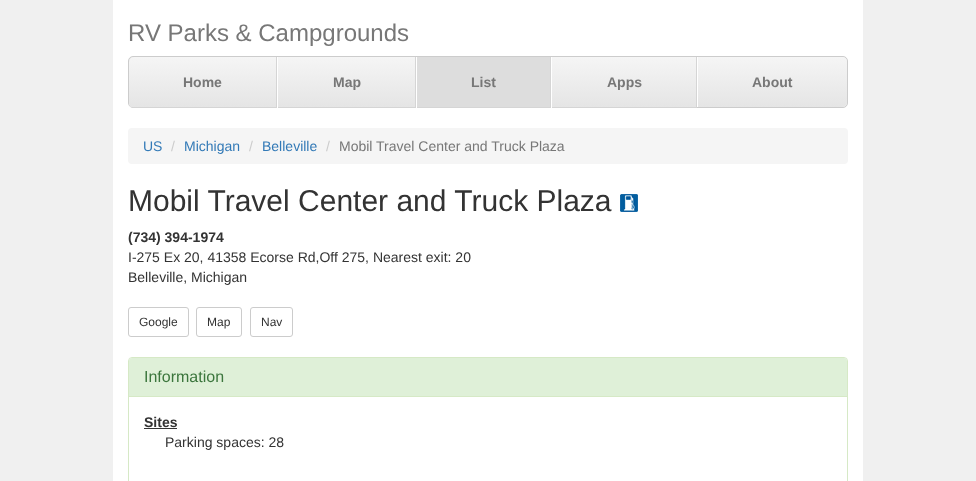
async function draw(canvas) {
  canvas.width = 976
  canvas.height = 481
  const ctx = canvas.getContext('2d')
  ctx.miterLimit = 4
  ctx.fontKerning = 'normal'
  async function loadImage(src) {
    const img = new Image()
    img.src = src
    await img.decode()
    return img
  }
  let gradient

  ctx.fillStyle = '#f0f0f0'
  ctx.fillRect(0, 0, 976, 481)
  ctx.fillStyle = '#fff'
  ctx.fillRect(113, 0, 750, 481)
  ctx.font = '24px Liberation Sans'
  ctx.fillStyle = '#777'
  ctx.fillText('RV Parks & Campgrounds', 128, 41)
  ctx.fillStyle = '#eee'
  ctx.beginPath()
  ctx.roundRect(128.5, 56.5, 719, 51, 4.5)
  ctx.fill()
  ctx.strokeStyle = '#ccc'
  ctx.stroke()
  ctx.fillStyle = '#e5e5e5'
  ctx.beginPath()
  ctx.roundRect(129, 57, 148, 51, [5, 0, 0, 5])
  ctx.fill()
  ctx.save()
  ctx.beginPath()
  ctx.roundRect(129, 57, 148, 51, [5, 0, 0, 5])
  ctx.clip()
  gradient = ctx.createLinearGradient(203, 57, 203, 107)
  gradient.addColorStop(0, '#f5f5f5')
  gradient.addColorStop(1, '#e5e5e5')
  ctx.fillStyle = gradient
  ctx.beginPath()
  ctx.roundRect(129, 57, 148, 50, [5, 0, 0, 0])
  ctx.fill()
  ctx.restore()
  ctx.fillStyle = '#d5d5d5'
  ctx.fillRect(276, 57, 1, 51)
  ctx.fillRect(132, 107, 145, 1)
  ctx.font = 'bold 14px Liberation Sans'
  ctx.fillStyle = '#777'
  ctx.fillText('Home', 183, 87)
  gradient = ctx.createLinearGradient(347, 57, 347, 107)
  gradient.addColorStop(0, '#f5f5f5')
  gradient.addColorStop(1, '#e5e5e5')
  ctx.fillStyle = gradient
  ctx.fillRect(278, 57, 137, 50)
  ctx.fillStyle = '#d5d5d5'
  ctx.fillRect(415, 57, 1, 51)
  ctx.fillRect(277, 107, 139, 1)
  ctx.fillStyle = '#fff'
  ctx.fillRect(277, 57, 1, 51)
  ctx.fillStyle = '#777'
  ctx.fillText('Map', 333, 87)
  ctx.fillStyle = '#ddd'
  ctx.fillRect(417, 57, 133, 50)
  ctx.fillStyle = '#d5d5d5'
  ctx.fillRect(550, 57, 1, 51)
  ctx.fillRect(416, 107, 135, 1)
  ctx.fillStyle = '#fff'
  ctx.fillRect(416, 57, 1, 51)
  ctx.fillStyle = '#777'
  ctx.fillText('List', 471, 87)
  gradient = ctx.createLinearGradient(624, 57, 624, 107)
  gradient.addColorStop(0, '#f5f5f5')
  gradient.addColorStop(1, '#e5e5e5')
  ctx.fillStyle = gradient
  ctx.fillRect(552, 57, 144, 50)
  ctx.fillStyle = '#d5d5d5'
  ctx.fillRect(696, 57, 1, 51)
  ctx.fillRect(551, 107, 146, 1)
  ctx.fillStyle = '#fff'
  ctx.fillRect(551, 57, 1, 51)
  ctx.fillStyle = '#777'
  ctx.fillText('Apps', 607, 87)
  gradient = ctx.createLinearGradient(773, 57, 773, 107)
  gradient.addColorStop(0, '#f5f5f5')
  gradient.addColorStop(1, '#e5e5e5')
  ctx.fillStyle = gradient
  ctx.beginPath()
  ctx.roundRect(697, 57, 150, 50, [0, 5, 5, 0])
  ctx.fill()
  ctx.fillStyle = '#fff'
  ctx.fillRect(697, 57, 1, 50)
  ctx.fillStyle = '#777'
  ctx.fillText('About', 752, 87)
  ctx.fillStyle = '#f5f5f5'
  ctx.beginPath()
  ctx.roundRect(128, 128, 720, 36, 4)
  ctx.fill()
  ctx.font = '14px Liberation Sans'
  ctx.fillStyle = '#337ab7'
  ctx.fillText('US', 143, 151)
  ctx.fillStyle = '#ccc'
  ctx.fillText('/', 171, 151)
  ctx.fillStyle = '#337ab7'
  ctx.fillText('Michigan', 184, 151)
  ctx.fillStyle = '#ccc'
  ctx.fillText('/', 249, 151)
  ctx.fillStyle = '#337ab7'
  ctx.fillText('Belleville', 262, 151)
  ctx.fillStyle = '#ccc'
  ctx.fillText('/', 326, 151)
  ctx.fillStyle = '#777'
  ctx.fillText('Mobil Travel Center and Truck Plaza', 339, 151)
  ctx.font = '30px Liberation Sans'
  ctx.fillStyle = '#333'
  ctx.fillText('Mobil Travel Center and Truck Plaza', 128, 211)
  ctx.drawImage(await loadImage('image0.png'), 620, 194, 18, 18)
  ctx.font = 'bold 14px Liberation Sans'
  ctx.fillText('(734) 394-1974', 128, 242)
  ctx.font = '14px Liberation Sans'
  ctx.fillText('I-275 Ex 20, 41358 Ecorse Rd,Off 275, Nearest exit: 20', 128, 262)
  ctx.fillText('Belleville, Michigan', 128, 282)
  ctx.beginPath()
  ctx.roundRect(128.5, 307.5, 60, 29, 2.5)
  ctx.stroke()
  ctx.font = '12px Liberation Sans'
  ctx.fillText('Google', 139, 326)
  ctx.beginPath()
  ctx.roundRect(196.5, 307.5, 45, 29, 2.5)
  ctx.stroke()
  ctx.fillText('Map', 207, 326)
  ctx.beginPath()
  ctx.roundRect(250.5, 307.5, 42, 29, 2.5)
  ctx.stroke()
  ctx.fillText('Nav', 261, 326)
  ctx.beginPath()
  ctx.roundRect(128.5, 357.5, 719, 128, 3.5)
  ctx.strokeStyle = '#d6e9c6'
  ctx.stroke()
  ctx.fillStyle = '#dff0d8'
  ctx.beginPath()
  ctx.roundRect(129, 358, 718, 39, [3, 3, 0, 0])
  ctx.fill()
  ctx.fillStyle = '#d6e9c6'
  ctx.fillRect(129, 396, 718, 1)
  ctx.font = '16px Liberation Sans'
  ctx.fillStyle = '#3c763d'
  ctx.fillText('Information', 144, 382)
  ctx.font = 'bold 14px Liberation Sans'
  ctx.fillStyle = '#333'
  ctx.fillText('Sites', 144, 427)
  ctx.fillRect(144, 428, 33, 1)
  ctx.font = '14px Liberation Sans'
  ctx.fillText('Parking spaces: 28', 165, 447)
}

draw(document.querySelector('canvas'))
